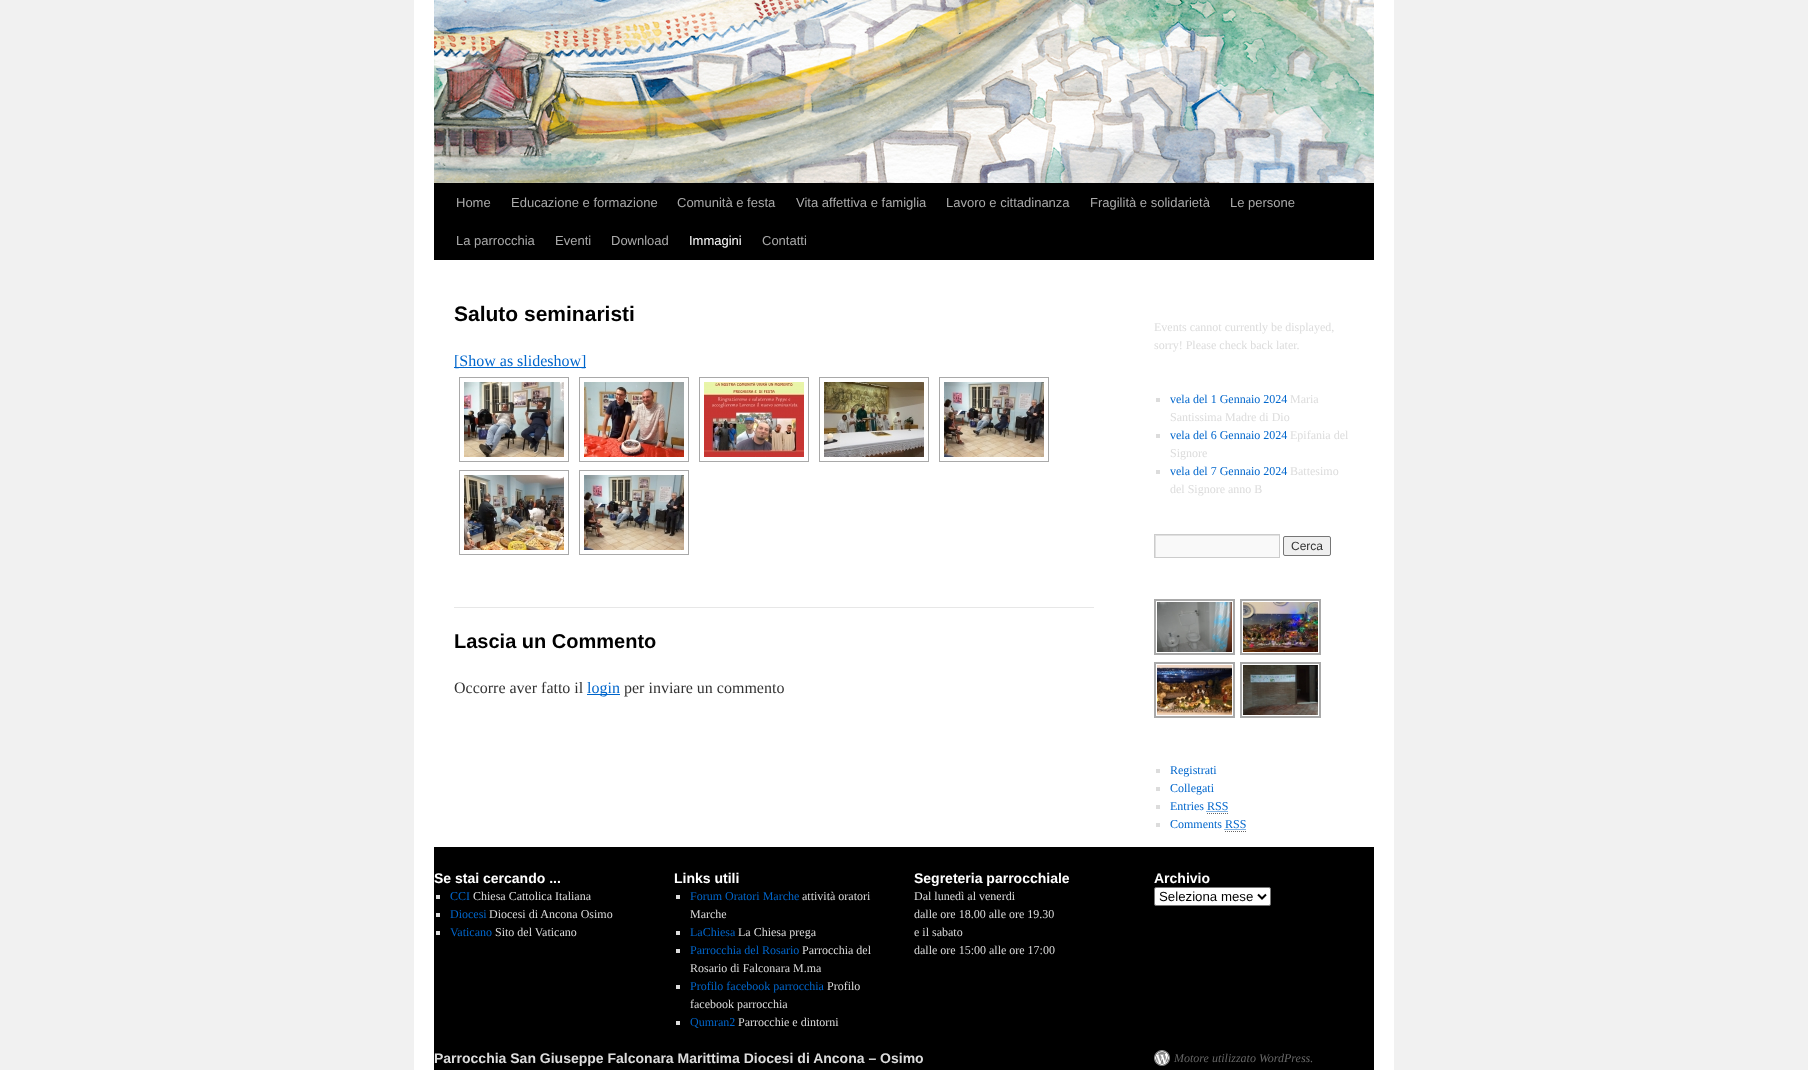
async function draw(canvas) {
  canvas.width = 1808
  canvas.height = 1070
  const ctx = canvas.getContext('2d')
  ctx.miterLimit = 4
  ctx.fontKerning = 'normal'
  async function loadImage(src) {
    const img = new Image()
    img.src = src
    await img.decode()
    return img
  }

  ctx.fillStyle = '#f1f1f1'
  ctx.fillRect(0, 0, 1808, 1070)
  ctx.fillStyle = '#fff'
  ctx.fillRect(414, 0, 980, 1070)
  ctx.fillStyle = '#000'
  ctx.fillRect(434, 183, 940, 77)
  ctx.drawImage(await loadImage('image0.png'), 434, 0, 940, 183)
  ctx.font = '13px Liberation Sans'
  ctx.fillStyle = '#aaa'
  ctx.fillText('Home', 456, 207)
  ctx.fillText('Educazione e formazione', 511, 207)
  ctx.fillText('Comunità e festa', 677, 207)
  ctx.fillText('Vita affettiva e famiglia', 796, 207)
  ctx.fillText('Lavoro e cittadinanza', 946, 207)
  ctx.fillText('Fragilità e solidarietà', 1090, 207)
  ctx.fillText('Le persone', 1230, 207)
  ctx.fillText('La parrocchia', 456, 245)
  ctx.fillText('Eventi', 555, 245)
  ctx.fillText('Download', 611, 245)
  ctx.fillStyle = '#fff'
  ctx.fillText('Immagini', 689, 245)
  ctx.fillStyle = '#aaa'
  ctx.fillText('Contatti', 762, 245)
  ctx.font = 'bold 21px Liberation Sans'
  ctx.fillStyle = '#000'
  ctx.fillText('Saluto seminaristi', 454, 321)
  ctx.fillStyle = '#06c'
  ctx.fillRect(454, 367, 132, 1)
  ctx.font = '16px Liberation Serif'
  ctx.fillText('[Show as slideshow]', 454, 366)
  ctx.strokeStyle = '#a9a9a9'
  ctx.strokeRect(459.5, 377.5, 109, 84)
  ctx.drawImage(await loadImage('image1.png'), 464, 382, 100, 75)
  ctx.strokeRect(579.5, 377.5, 109, 84)
  ctx.drawImage(await loadImage('image2.png'), 584, 382, 100, 75)
  ctx.strokeRect(699.5, 377.5, 109, 84)
  ctx.drawImage(await loadImage('image3.png'), 704, 382, 100, 75)
  ctx.strokeRect(819.5, 377.5, 109, 84)
  ctx.drawImage(await loadImage('image4.png'), 824, 382, 100, 75)
  ctx.strokeRect(939.5, 377.5, 109, 84)
  ctx.drawImage(await loadImage('image5.png'), 944, 382, 100, 75)
  ctx.strokeRect(459.5, 470.5, 109, 84)
  ctx.drawImage(await loadImage('image6.png'), 464, 475, 100, 75)
  ctx.strokeRect(579.5, 470.5, 109, 84)
  ctx.drawImage(await loadImage('image7.png'), 584, 475, 100, 75)
  ctx.fillStyle = '#e7e7e7'
  ctx.fillRect(454, 607, 640, 1)
  ctx.font = 'bold 20px Liberation Sans'
  ctx.fillStyle = '#000'
  ctx.fillText('Lascia un Commento', 454, 648)
  ctx.font = '16px Liberation Serif'
  ctx.fillStyle = '#333'
  ctx.fillText('Occorre aver fatto il', 454, 693)
  ctx.fillStyle = '#06c'
  ctx.fillRect(587, 694, 33, 1)
  ctx.fillText('login', 587, 693)
  ctx.fillStyle = '#333'
  ctx.fillText('per inviare un commento', 624, 693)
  ctx.font = '12px Liberation Serif'
  ctx.fillStyle = '#dcdcdc'
  ctx.fillText('Events cannot currently be displayed,', 1154, 331)
  ctx.fillText('sorry! Please check back later.', 1154, 349)
  ctx.fillRect(1156, 398, 4, 4)
  ctx.fillStyle = '#06c'
  ctx.fillText('vela del 1 Gennaio 2024', 1170, 403)
  ctx.fillStyle = '#dcdcdc'
  ctx.fillText('Maria', 1290, 403)
  ctx.fillText('Santissima Madre di Dio', 1170, 421)
  ctx.fillRect(1156, 434, 4, 4)
  ctx.fillStyle = '#06c'
  ctx.fillText('vela del 6 Gennaio 2024', 1170, 439)
  ctx.fillStyle = '#dcdcdc'
  ctx.fillText('Epifania del', 1290, 439)
  ctx.fillText('Signore', 1170, 457)
  ctx.fillRect(1156, 470, 4, 4)
  ctx.fillStyle = '#06c'
  ctx.fillText('vela del 7 Gennaio 2024', 1170, 475)
  ctx.fillStyle = '#dcdcdc'
  ctx.fillText('Battesimo', 1290, 475)
  ctx.fillText('del Signore anno B', 1170, 493)
  ctx.fillStyle = '#f9f9f9'
  ctx.fillRect(1156, 536, 123, 21)
  ctx.save()
  ctx.beginPath()
  ctx.rect(1155, 535, 124, 22)
  ctx.clip()
  ctx.fillStyle = '#e0e0e0'
  ctx.beginPath()
  ctx.moveTo(1056, 436)
  ctx.lineTo(1378, 436)
  ctx.lineTo(1378, 656)
  ctx.lineTo(1056, 656)
  ctx.closePath()
  ctx.moveTo(1156, 536)
  ctx.lineTo(1280, 536)
  ctx.lineTo(1280, 558)
  ctx.lineTo(1156, 558)
  ctx.closePath()
  ctx.fill('evenodd')
  ctx.restore()
  ctx.strokeStyle = '#ccc'
  ctx.strokeRect(1154.5, 534.5, 125, 23)
  ctx.fillStyle = '#efefef'
  ctx.beginPath()
  ctx.roundRect(1283.5, 536.5, 47, 19, 1.5)
  ctx.fill()
  ctx.strokeStyle = '#767676'
  ctx.stroke()
  ctx.font = '12px Liberation Sans'
  ctx.fillStyle = '#333'
  ctx.fillText('Cerca', 1291, 550)
  ctx.strokeStyle = '#a9a9a9'
  ctx.lineWidth = 2
  ctx.strokeRect(1155, 600, 79, 54)
  ctx.strokeRect(1241, 600, 79, 54)
  ctx.drawImage(await loadImage('image8.png'), 1157, 602, 75, 50)
  ctx.drawImage(await loadImage('image9.png'), 1243, 602, 75, 50)
  ctx.strokeRect(1155, 663, 79, 54)
  ctx.strokeRect(1241, 663, 79, 54)
  ctx.drawImage(await loadImage('image10.png'), 1157, 665, 75, 50)
  ctx.drawImage(await loadImage('image11.png'), 1243, 665, 75, 50)
  ctx.fillStyle = '#dcdcdc'
  ctx.fillRect(1156, 769, 4, 4)
  ctx.font = '12px Liberation Serif'
  ctx.fillStyle = '#06c'
  ctx.fillText('Registrati', 1170, 774)
  ctx.fillStyle = '#dcdcdc'
  ctx.fillRect(1156, 787, 4, 4)
  ctx.fillStyle = '#06c'
  ctx.fillText('Collegati', 1170, 792)
  ctx.fillStyle = '#dcdcdc'
  ctx.fillRect(1156, 805, 4, 4)
  ctx.fillStyle = '#06c'
  ctx.fillText('Entries RSS', 1170, 810)
  ctx.beginPath()
  ctx.moveTo(1207, 813.5)
  ctx.lineTo(1228, 813.5)
  ctx.strokeStyle = '#666'
  ctx.lineWidth = 1
  ctx.setLineDash([1, 1])
  ctx.stroke()
  ctx.beginPath()
  ctx.moveTo(1206.5, 811.5)
  ctx.lineTo(1228, 811.5)
  ctx.strokeStyle = '#06c'
  ctx.stroke()
  ctx.fillStyle = '#dcdcdc'
  ctx.fillRect(1156, 823, 4, 4)
  ctx.fillStyle = '#06c'
  ctx.fillText('Comments RSS', 1170, 828)
  ctx.beginPath()
  ctx.moveTo(1225, 831.5)
  ctx.lineTo(1246, 831.5)
  ctx.strokeStyle = '#666'
  ctx.stroke()
  ctx.beginPath()
  ctx.moveTo(1224.5, 829.5)
  ctx.lineTo(1246, 829.5)
  ctx.strokeStyle = '#06c'
  ctx.stroke()
  ctx.fillStyle = '#000'
  ctx.fillRect(434, 847, 940, 223)
  ctx.font = 'bold 14px Liberation Sans'
  ctx.fillStyle = '#fff'
  ctx.fillText('Se stai cercando ...', 434, 883)
  ctx.fillStyle = '#dcdcdc'
  ctx.fillRect(436, 895, 4, 4)
  ctx.font = '12px Liberation Serif'
  ctx.fillStyle = '#06c'
  ctx.fillText('CCI', 450, 900)
  ctx.fillStyle = '#dcdcdc'
  ctx.fillText('Chiesa Cattolica Italiana', 473, 900)
  ctx.fillRect(436, 913, 4, 4)
  ctx.fillStyle = '#06c'
  ctx.fillText('Diocesi', 450, 918)
  ctx.fillStyle = '#dcdcdc'
  ctx.fillText('Diocesi di Ancona Osimo', 489, 918)
  ctx.fillRect(436, 931, 4, 4)
  ctx.fillStyle = '#06c'
  ctx.fillText('Vaticano', 450, 936)
  ctx.fillStyle = '#dcdcdc'
  ctx.fillText('Sito del Vaticano', 495, 936)
  ctx.font = 'bold 14px Liberation Sans'
  ctx.fillStyle = '#fff'
  ctx.fillText('Links utili', 674, 883)
  ctx.fillStyle = '#dcdcdc'
  ctx.fillRect(676, 895, 4, 4)
  ctx.font = '12px Liberation Serif'
  ctx.fillStyle = '#06c'
  ctx.fillText('Forum Oratori Marche', 690, 900)
  ctx.fillStyle = '#dcdcdc'
  ctx.fillText('attività oratori', 802, 900)
  ctx.fillText('Marche', 690, 918)
  ctx.fillRect(676, 931, 4, 4)
  ctx.fillStyle = '#06c'
  ctx.fillText('LaChiesa', 690, 936)
  ctx.fillStyle = '#dcdcdc'
  ctx.fillText('La Chiesa prega', 738, 936)
  ctx.fillRect(676, 949, 4, 4)
  ctx.fillStyle = '#06c'
  ctx.fillText('Parrocchia del Rosario', 690, 954)
  ctx.fillStyle = '#dcdcdc'
  ctx.fillText('Parrocchia del', 802, 954)
  ctx.fillText('Rosario di Falconara M.ma', 690, 972)
  ctx.fillRect(676, 985, 4, 4)
  ctx.fillStyle = '#06c'
  ctx.fillText('Profilo facebook parrocchia', 690, 990)
  ctx.fillStyle = '#dcdcdc'
  ctx.fillText('Profilo', 827, 990)
  ctx.fillText('facebook parrocchia', 690, 1008)
  ctx.fillRect(676, 1021, 4, 4)
  ctx.fillStyle = '#06c'
  ctx.fillText('Qumran2', 690, 1026)
  ctx.fillStyle = '#dcdcdc'
  ctx.fillText('Parrocchie e dintorni', 738, 1026)
  ctx.font = 'bold 14px Liberation Sans'
  ctx.fillStyle = '#fff'
  ctx.fillText('Segreteria parrocchiale', 914, 883)
  ctx.font = '12px Liberation Serif'
  ctx.fillStyle = '#dcdcdc'
  ctx.fillText('Dal lunedì al venerdi', 914, 900)
  ctx.fillText('dalle ore 18.00 alle ore 19.30', 914, 918)
  ctx.fillText('e il sabato', 914, 936)
  ctx.fillText('dalle ore 15:00 alle ore 17:00', 914, 954)
  ctx.font = 'bold 14px Liberation Sans'
  ctx.fillStyle = '#fff'
  ctx.fillText('Archivio', 1154, 883)
  ctx.beginPath()
  ctx.roundRect(1154.5, 887.5, 116, 18, 1.5)
  ctx.fill()
  ctx.strokeStyle = '#767676'
  ctx.setLineDash([])
  ctx.stroke()
  ctx.beginPath()
  ctx.moveTo(1258, 894.5)
  ctx.lineTo(1262, 898.5)
  ctx.lineTo(1266, 894.5)
  ctx.strokeStyle = '#000'
  ctx.lineWidth = 2
  ctx.stroke()
  ctx.font = '13.25px Liberation Sans'
  ctx.fillStyle = '#000'
  ctx.fillText('Seleziona mese', 1159, 901)
  ctx.font = 'bold 14px Liberation Sans'
  ctx.fillStyle = '#dcdcdc'
  ctx.fillText('Parrocchia San Giuseppe Falconara Marittima Diocesi di Ancona – Osimo', 434, 1063)
  ctx.drawImage(await loadImage('image12.png'), 1154, 1050, 16, 16)
  ctx.font = 'italic 12px Liberation Serif'
  ctx.fillStyle = '#666'
  ctx.fillText('Motore utilizzato WordPress.', 1174, 1062)
}

draw(document.querySelector('canvas'))
